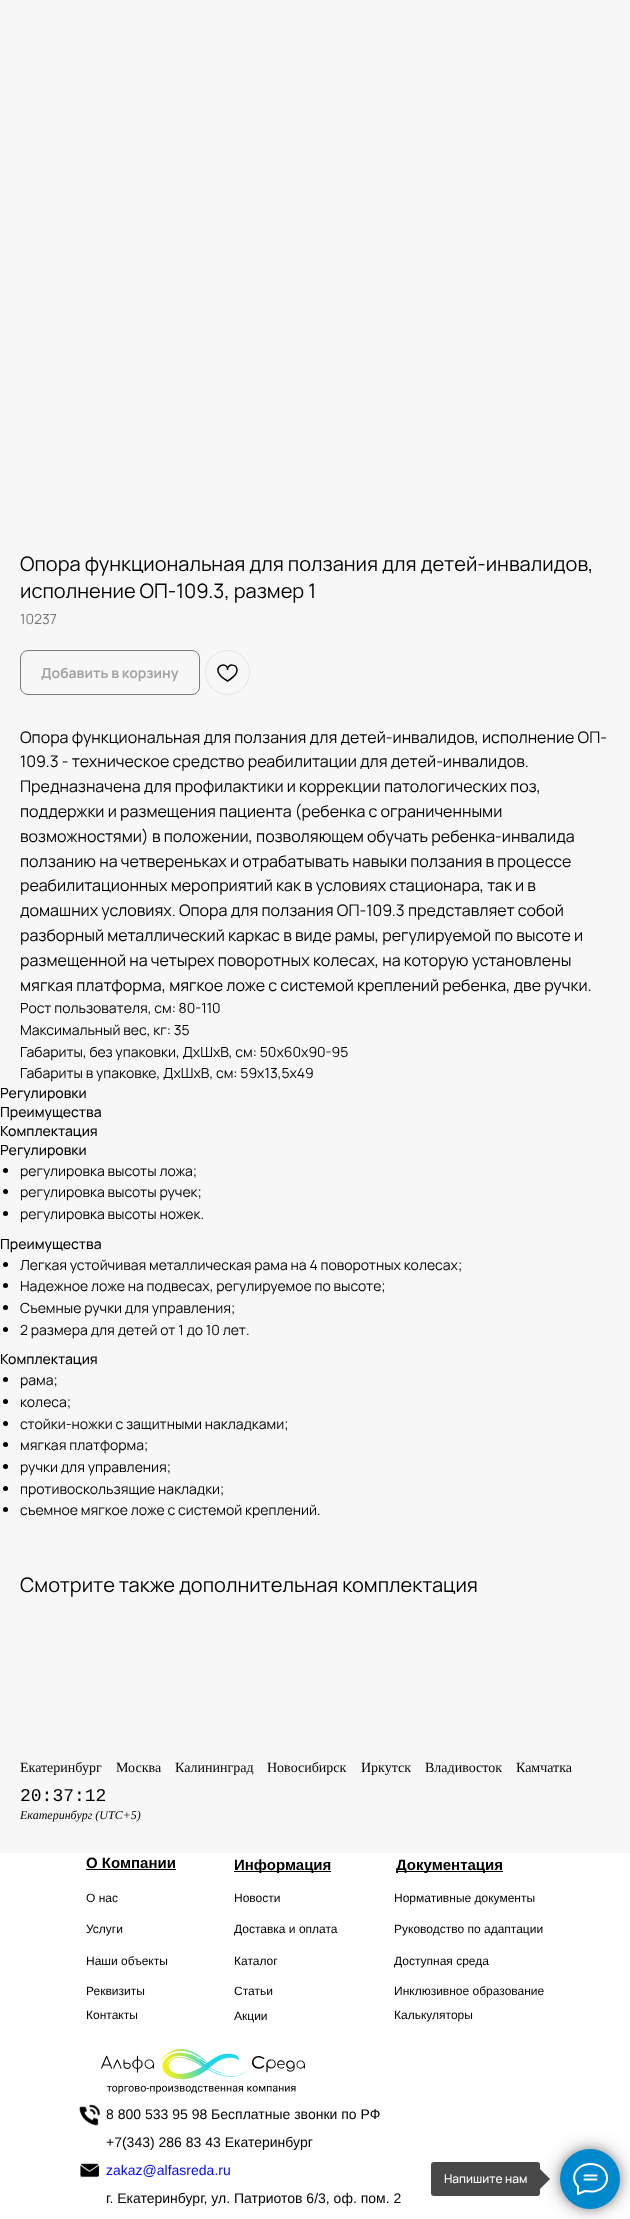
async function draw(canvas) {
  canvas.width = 630
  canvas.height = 2219
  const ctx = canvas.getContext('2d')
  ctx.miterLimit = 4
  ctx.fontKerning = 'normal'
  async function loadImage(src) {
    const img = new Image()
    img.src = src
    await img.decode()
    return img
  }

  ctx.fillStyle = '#f7f7f7'
  ctx.fillRect(0, 0, 630, 2219)
  ctx.font = '20px Manrope'
  ctx.fillStyle = '#000'
  ctx.fillText('Опора функциональная для ползания для детей-инвалидов,', 20, 571)
  ctx.fillText('исполнение ОП-109.3, размер 1', 20, 598)
  ctx.font = '14px Manrope'
  ctx.fillStyle = '#777'
  ctx.fillText('10237', 20, 624)
  ctx.beginPath()
  ctx.roundRect(20.5, 650.5, 179, 44, 7.5)
  ctx.strokeStyle = '#7c7c7c'
  ctx.stroke()
  ctx.font = 'bold 14px Manrope'
  ctx.fillStyle = '#a4a4a4'
  ctx.fillText('Добавить в корзину', 41, 678)
  ctx.beginPath()
  ctx.arc(227.5, 672.5, 22, 0, 2 * Math.PI)
  ctx.strokeStyle = '#e4e4e4'
  ctx.stroke()
  ctx.beginPath()
  ctx.moveTo(237, 670.5)
  ctx.bezierCurveTo(237, 675.5, 227.5, 681, 227.5, 681)
  ctx.bezierCurveTo(206, 668.5, 227.5, 659, 227.5, 669.5)
  ctx.bezierCurveTo(227.5, 663.5, 237, 663.5, 237, 670.5)
  ctx.closePath()
  ctx.strokeStyle = '#000'
  ctx.lineWidth = 1.5
  ctx.lineJoin = 'round'
  ctx.stroke()
  ctx.font = '16px Manrope'
  ctx.fillStyle = '#000'
  ctx.fillText('Опора функциональная для ползания для детей-инвалидов, исполнение ОП-', 20, 743)
  ctx.fillText('109.3 - техническое средство реабилитации для детей-инвалидов.', 20, 767)
  ctx.fillText('Предназначена для профилактики и коррекции патологических поз,', 20, 792)
  ctx.fillText('поддержки и размещения пациента (ребенка с ограниченными', 20, 817)
  ctx.fillText('возможностями) в положении, позволяющем обучать ребенка-инвалида', 20, 842)
  ctx.fillText('ползанию на четвереньках и отрабатывать навыки ползания в процессе', 20, 867)
  ctx.fillText('реабилитационных мероприятий как в условиях стационара, так и в', 20, 891)
  ctx.fillText('домашних условиях. Опора для ползания ОП-109.3 представляет собой', 20, 916)
  ctx.fillText('разборный металлический каркас в виде рамы, регулируемой по высоте и', 20, 941)
  ctx.fillText('размещенной на четырех поворотных колесах, на которую установлены', 20, 966)
  ctx.fillText('мягкая платформа, мягкое ложе с системой креплений ребенка, две ручки.', 20, 991)
  ctx.font = '14px Manrope'
  ctx.fillText('Рост пользователя, см: 80-110', 20, 1013)
  ctx.fillText('Максимальный вес, кг: 35', 20, 1035)
  ctx.fillText('Габариты, без упаковки, ДхШхВ, см: 50х60х90-95', 20, 1057)
  ctx.fillText('Габариты в упаковке, ДхШхВ, см: 59х13,5х49', 20, 1078)
  ctx.font = '500 14px Manrope'
  ctx.fillText('Регулировки', 0, 1098)
  ctx.fillText('Преимущества', 0, 1117)
  ctx.fillText('Комплектация', 0, 1136)
  ctx.fillText('Регулировки', 0, 1155)
  ctx.beginPath()
  ctx.arc(5.5, 1170.5, 2.5, 0, 2 * Math.PI)
  ctx.fill()
  ctx.font = '14px Manrope'
  ctx.fillText('регулировка высоты ложа;', 20, 1176)
  ctx.beginPath()
  ctx.arc(5.5, 1191.5, 2.5, 0, 2 * Math.PI)
  ctx.fill()
  ctx.fillText('регулировка высоты ручек;', 20, 1197)
  ctx.beginPath()
  ctx.arc(5.5, 1213.5, 2.5, 0, 2 * Math.PI)
  ctx.fill()
  ctx.fillText('регулировка высоты ножек.', 20, 1219)
  ctx.font = '500 14px Manrope'
  ctx.fillText('Преимущества', 0, 1249)
  ctx.beginPath()
  ctx.arc(5.5, 1264.5, 2.5, 0, 2 * Math.PI)
  ctx.fill()
  ctx.font = '14px Manrope'
  ctx.fillText('Легкая устойчивая металлическая рама на 4 поворотных колесах;', 20, 1270)
  ctx.beginPath()
  ctx.arc(5.5, 1285.5, 2.5, 0, 2 * Math.PI)
  ctx.fill()
  ctx.fillText('Надежное ложе на подвесах, регулируемое по высоте;', 20, 1291)
  ctx.beginPath()
  ctx.arc(5.5, 1307.5, 2.5, 0, 2 * Math.PI)
  ctx.fill()
  ctx.fillText('Съемные ручки для управления;', 20, 1313)
  ctx.beginPath()
  ctx.arc(5.5, 1329.5, 2.5, 0, 2 * Math.PI)
  ctx.fill()
  ctx.fillText('2 размера для детей от 1 до 10 лет.', 20, 1335)
  ctx.font = '500 14px Manrope'
  ctx.fillText('Комплектация', 0, 1364)
  ctx.beginPath()
  ctx.arc(5.5, 1379.5, 2.5, 0, 2 * Math.PI)
  ctx.fill()
  ctx.font = '14px Manrope'
  ctx.fillText('рама;', 20, 1385)
  ctx.beginPath()
  ctx.arc(5.5, 1401.5, 2.5, 0, 2 * Math.PI)
  ctx.fill()
  ctx.fillText('колеса;', 20, 1407)
  ctx.beginPath()
  ctx.arc(5.5, 1423.5, 2.5, 0, 2 * Math.PI)
  ctx.fill()
  ctx.fillText('стойки-ножки с защитными накладками;', 20, 1429)
  ctx.beginPath()
  ctx.arc(5.5, 1444.5, 2.5, 0, 2 * Math.PI)
  ctx.fill()
  ctx.fillText('мягкая платформа;', 20, 1450)
  ctx.beginPath()
  ctx.arc(5.5, 1466.5, 2.5, 0, 2 * Math.PI)
  ctx.fill()
  ctx.fillText('ручки для управления;', 20, 1472)
  ctx.beginPath()
  ctx.arc(5.5, 1488.5, 2.5, 0, 2 * Math.PI)
  ctx.fill()
  ctx.fillText('противоскользящие накладки;', 20, 1494)
  ctx.beginPath()
  ctx.arc(5.5, 1509.5, 2.5, 0, 2 * Math.PI)
  ctx.fill()
  ctx.fillText('съемное мягкое ложе с системой креплений.', 20, 1515)
  ctx.font = '20px Manrope'
  ctx.fillText('Смотрите также дополнительная комплектация', 20, 1592)
  ctx.font = '14px Liberation Serif'
  ctx.fillText('Екатеринбург', 20, 1772)
  ctx.fillText('Москва', 116, 1772)
  ctx.fillText('Калининград', 175, 1772)
  ctx.fillText('Новосибирск', 267, 1772)
  ctx.fillText('Иркутск', 361, 1772)
  ctx.fillText('Владивосток', 425, 1772)
  ctx.fillText('Камчатка', 516, 1772)
  ctx.font = '18px Liberation Mono'
  ctx.fillText('20:37:12', 20, 1801)
  ctx.font = 'italic 12px Liberation Serif'
  ctx.fillText('Екатеринбург (UTC+5)', 20, 1819)
  ctx.fillStyle = '#fff'
  ctx.fillRect(0, 1853, 630, 366)
  ctx.font = 'bold 15px Liberation Sans'
  ctx.fillStyle = '#000'
  ctx.fillText('О Компании', 86, 1868)
  ctx.fillRect(86, 1869, 90, 1)
  ctx.fillRect(234, 1871, 97, 1)
  ctx.fillText('Информация', 234, 1870)
  ctx.fillRect(396, 1871, 107, 1)
  ctx.fillText('Документация', 396, 1870)
  ctx.font = '12px Liberation Sans'
  ctx.fillText('О нас', 86, 1902)
  ctx.fillText('Новости', 234, 1902)
  ctx.fillText('Нормативные документы', 394, 1902)
  ctx.fillText('Услуги', 86, 1933)
  ctx.fillText('Доставка и оплата', 234, 1933)
  ctx.fillText('Руководство по адаптации', 394, 1933)
  ctx.fillText('Наши объекты', 86, 1965)
  ctx.fillText('Каталог', 234, 1965)
  ctx.fillText('Доступная среда', 394, 1965)
  ctx.fillText('Реквизиты', 86, 1995)
  ctx.fillText('Статьи', 234, 1995)
  ctx.fillText('Инклюзивное образование', 394, 1995)
  ctx.fillText('Контакты', 86, 2019)
  ctx.fillText('Акции', 234, 2020)
  ctx.fillText('Калькуляторы', 394, 2019)
  ctx.drawImage(await loadImage('image0.png'), 101, 2049, 204, 45)
  ctx.drawImage(await loadImage('image1.png'), 79, 2104, 21, 22)
  ctx.font = '14px Liberation Sans'
  ctx.fillText('8 800 533 95 98 Бесплатные звонки по РФ', 106, 2119)
  ctx.fillText('+7(343) 286 83 43 Екатеринбург', 106, 2147)
  ctx.fillStyle = '#0009ff'
  ctx.fillText('zakaz@alfasreda.ru', 106, 2175)
  ctx.fillStyle = '#000'
  ctx.fillText('г. Екатеринбург, ул. Патриотов 6/3, оф. пом. 2', 106, 2203)
  ctx.drawImage(await loadImage('image2.png'), 80, 2163, 19, 15)
  ctx.fillStyle = '#494949'
  ctx.beginPath()
  ctx.roundRect(431, 2162, 109, 34, 3)
  ctx.fill()
  ctx.beginPath()
  ctx.moveTo(540, 2189)
  ctx.lineTo(540, 2169)
  ctx.lineTo(550, 2179)
  ctx.closePath()
  ctx.fill()
  ctx.fillStyle = '#0000004d'
  ctx.filter = 'blur(10px)'
  ctx.beginPath()
  ctx.roundRect(560, 2149, 60, 60, 30)
  ctx.fill()
  ctx.filter = 'none'
  ctx.filter = 'blur(5px)'
  ctx.beginPath()
  ctx.roundRect(560, 2149, 60, 60, 30)
  ctx.fill()
  ctx.filter = 'none'
  ctx.fillStyle = '#08c'
  ctx.beginPath()
  ctx.arc(590, 2179, 30, 0, 2 * Math.PI)
  ctx.fill()
  ctx.beginPath()
  ctx.moveTo(584.5, 2175.5)
  ctx.lineTo(596.5, 2175.5)
  ctx.moveTo(584.5, 2179.5)
  ctx.lineTo(596.5, 2179.5)
  ctx.moveTo(578, 2186.5)
  ctx.bezierCurveTo(572.5, 2181, 573, 2173, 579, 2168)
  ctx.bezierCurveTo(582, 2165.5, 586.5, 2164, 590.5, 2164)
  ctx.bezierCurveTo(610, 2164, 613.5, 2188, 594, 2191.5)
  ctx.bezierCurveTo(590, 2192, 588.5, 2191, 585, 2191)
  ctx.lineTo(578, 2194)
  ctx.lineTo(578, 2187)
  ctx.closePath()
  ctx.strokeStyle = '#fff'
  ctx.lineWidth = 2
  ctx.lineCap = 'round'
  ctx.stroke()
  ctx.font = '500 12px Manrope'
  ctx.fillStyle = '#fff'
  ctx.fillText('Напишите нам', 444, 2183)
}

draw(document.querySelector('canvas'))
